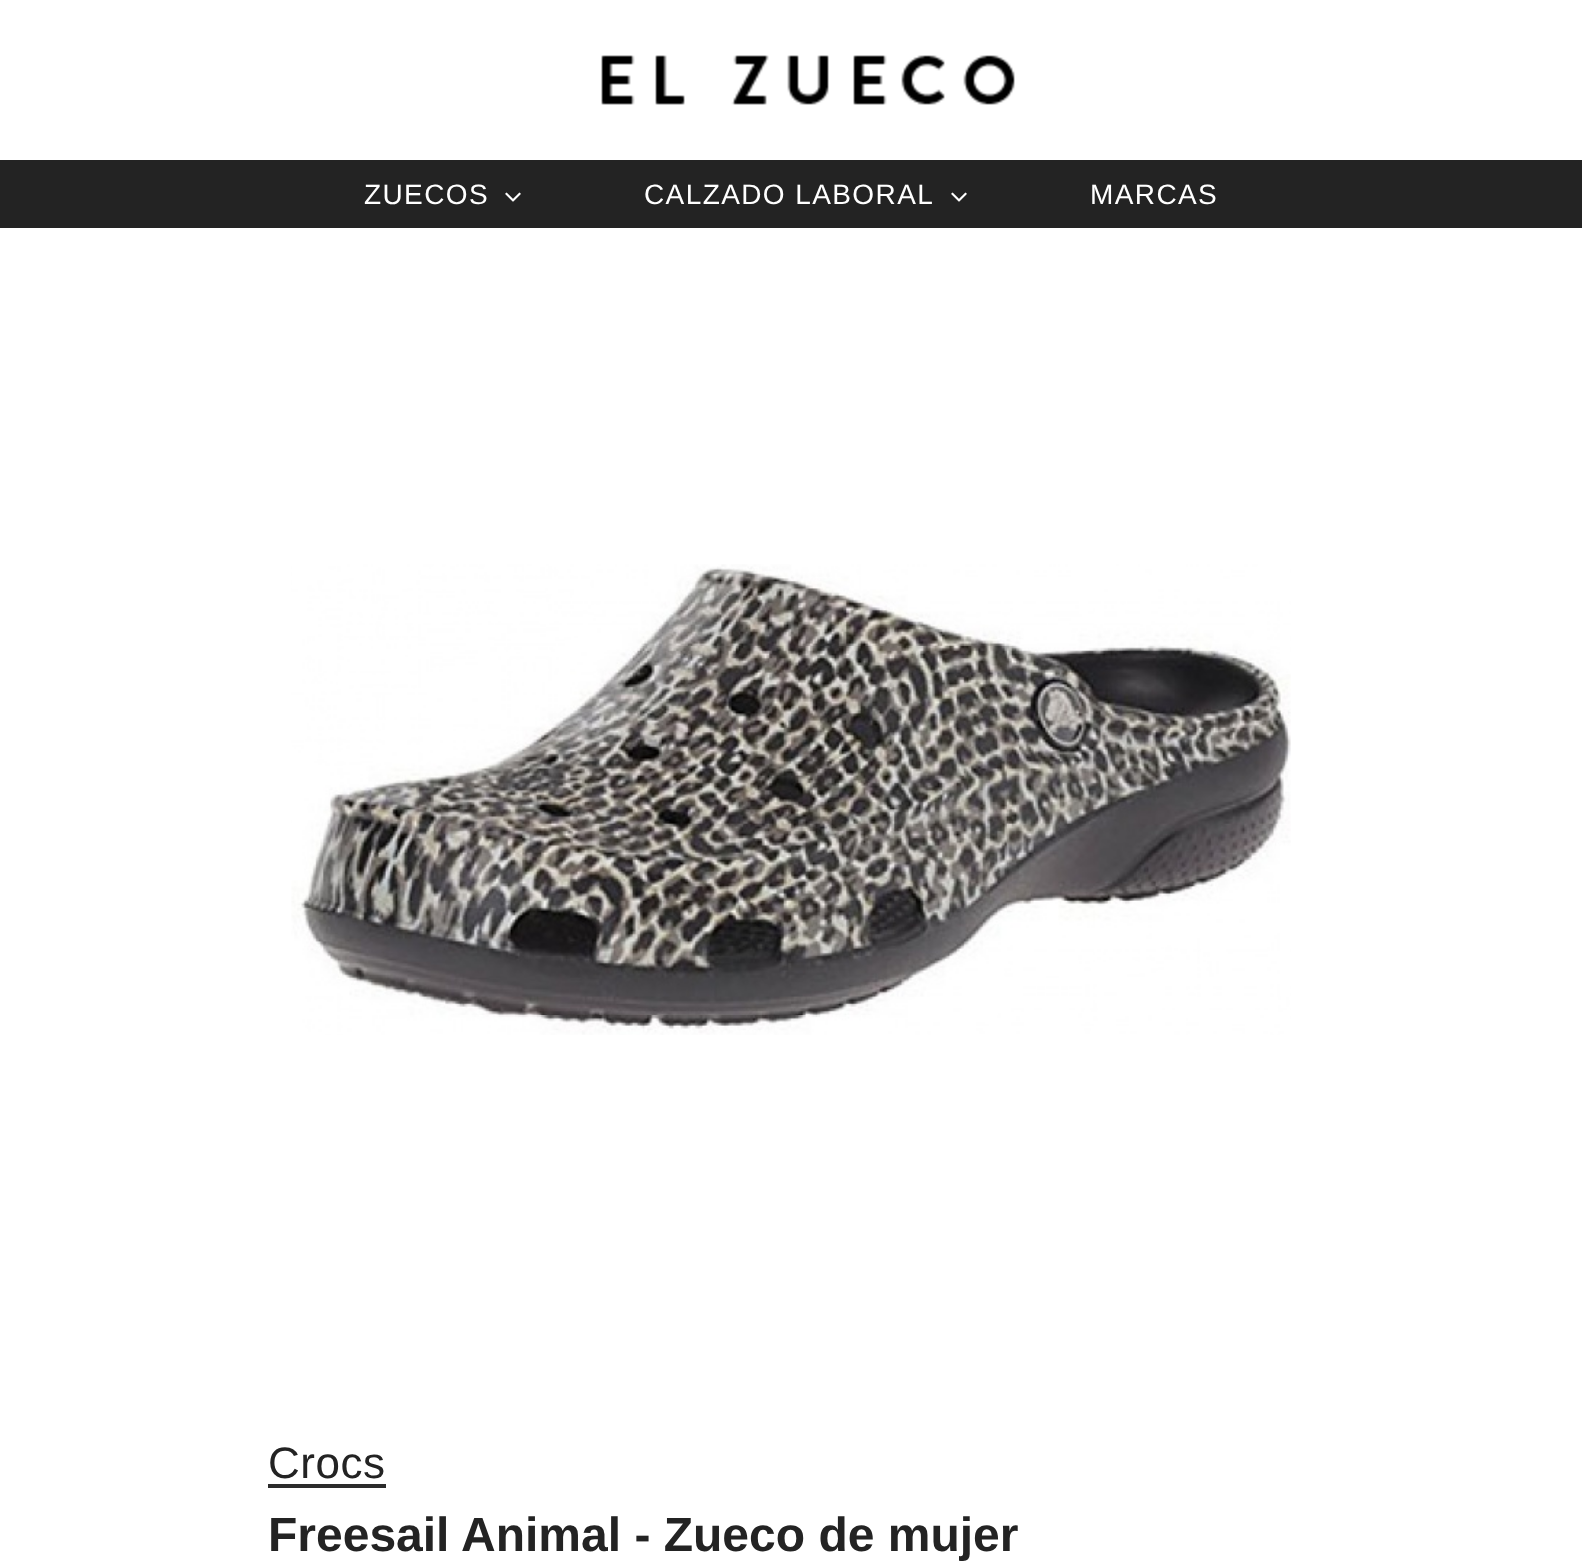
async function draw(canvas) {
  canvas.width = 1582
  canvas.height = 1561
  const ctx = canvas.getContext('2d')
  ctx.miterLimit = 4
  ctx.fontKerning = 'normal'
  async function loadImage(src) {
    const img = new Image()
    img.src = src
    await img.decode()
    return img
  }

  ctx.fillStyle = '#fff'
  ctx.fillRect(0, 0, 1582, 1561)
  ctx.drawImage(await loadImage('image0.png'), 601, 55, 414, 50)
  ctx.fillStyle = '#232323'
  ctx.fillRect(0, 160, 1582, 68)
  ctx.letterSpacing = '1.4px'
  ctx.font = '28px Liberation Sans'
  ctx.fillStyle = '#fff'
  ctx.fillText('ZUECOS', 364, 204)
  ctx.drawImage(await loadImage('image1.png'), 505, 192, 16, 10)
  ctx.fillText('CALZADO LABORAL', 644, 204)
  ctx.drawImage(await loadImage('image1.png'), 951, 192, 16, 10)
  ctx.fillText('MARCAS', 1090, 204)
  ctx.drawImage(await loadImage('image2.png'), 291, 564, 1000, 471)
  ctx.fillStyle = '#2b2b2b'
  ctx.fillRect(268, 1484, 118, 4)
  ctx.letterSpacing = '0.5px'
  ctx.font = '44px Liberation Sans'
  ctx.fillStyle = '#232323'
  ctx.fillText('Crocs', 268, 1478)
  ctx.letterSpacing = '0px'
  ctx.font = 'bold 48px Liberation Sans'
  ctx.fillText('Freesail Animal - Zueco de mujer', 268, 1551)
}

draw(document.querySelector('canvas'))
